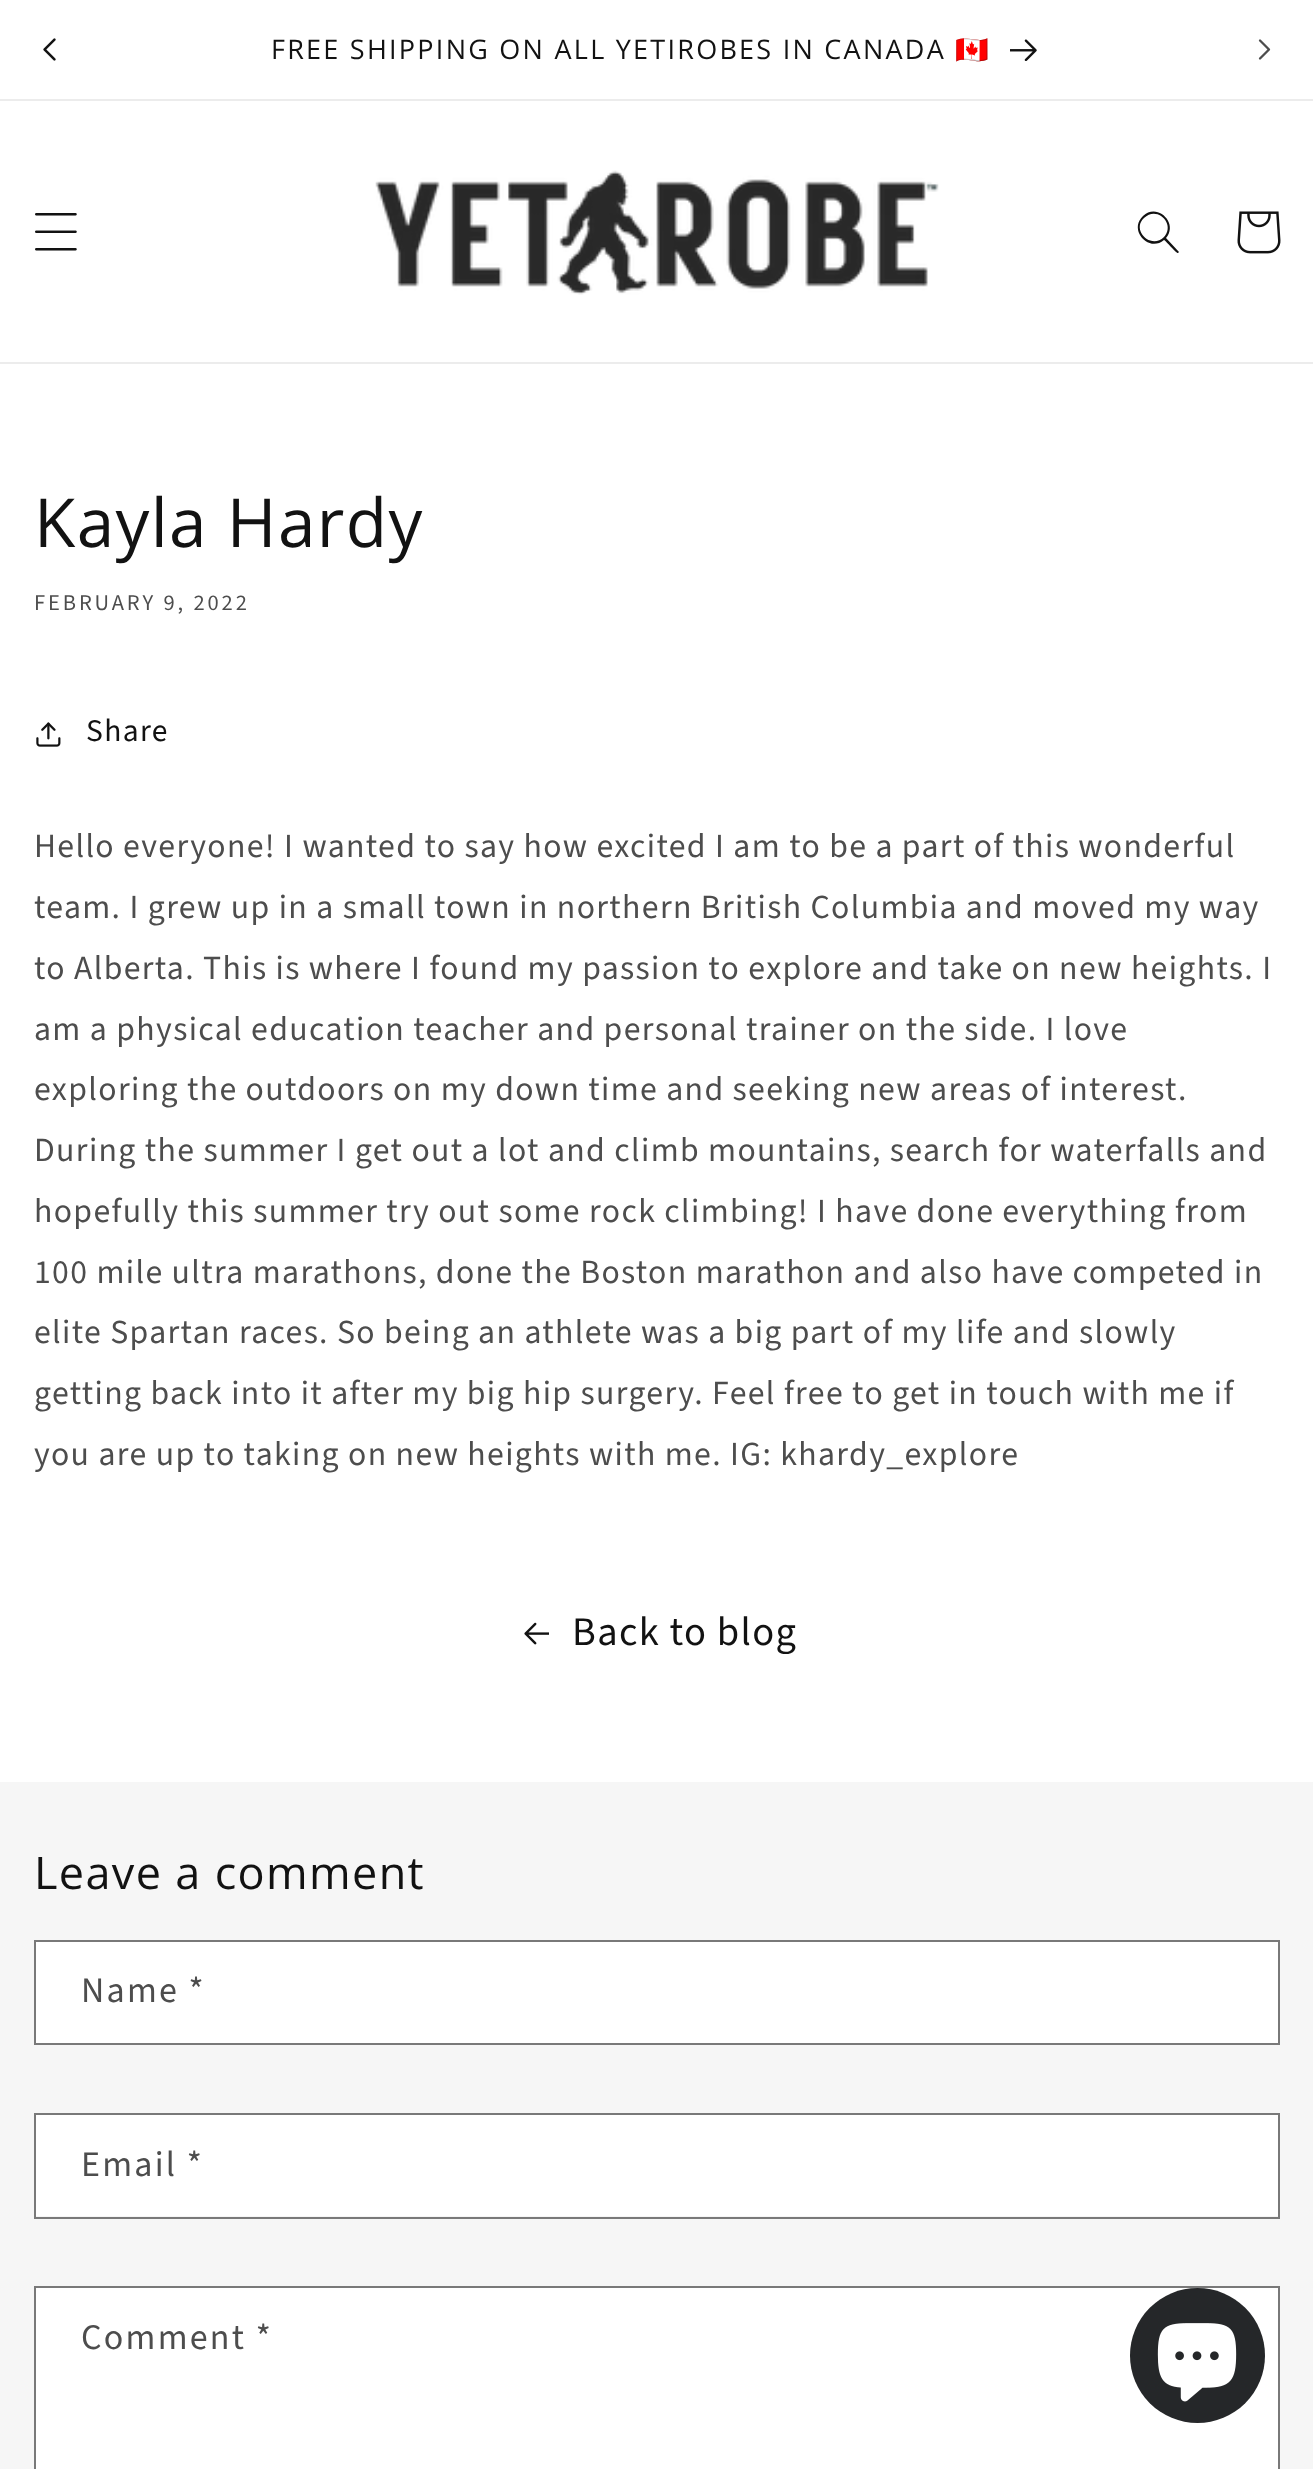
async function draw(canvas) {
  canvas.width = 1313
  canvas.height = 2469
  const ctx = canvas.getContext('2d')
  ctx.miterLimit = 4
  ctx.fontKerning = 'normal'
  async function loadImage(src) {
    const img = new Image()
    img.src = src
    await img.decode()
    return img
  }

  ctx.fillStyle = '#fff'
  ctx.fillRect(0, 0, 1313, 2469)
  ctx.fillStyle = '#ececec'
  ctx.fillRect(0, 99, 1313, 2)
  ctx.drawImage(await loadImage('image0.png'), 43, 38, 13, 23)
  ctx.letterSpacing = '2.25px'
  ctx.font = '27px Open Sans'
  ctx.fillStyle = '#121212'
  ctx.fillText('FREE SHIPPING ON ALL YETIROBES IN CANADA', 271, 59)
  ctx.font = '27px Noto Color Emoji'
  ctx.fillText('🇨🇦', 955, 59)
  ctx.drawImage(await loadImage('image1.png'), 1010, 39, 27, 22)
  ctx.drawImage(await loadImage('image2.png'), 1258, 39, 13, 21)
  ctx.fillStyle = '#ececec'
  ctx.fillRect(0, 362, 1313, 2)
  ctx.drawImage(await loadImage('image3.png'), 35, 213, 42, 38)
  ctx.drawImage(await loadImage('image4.png'), 375, 170, 564, 125)
  ctx.fillStyle = '#121212'
  ctx.beginPath()
  ctx.moveTo(1164, 237)
  ctx.bezierCurveTo(1151, 250, 1131, 230, 1144, 218)
  ctx.bezierCurveTo(1157, 205, 1176, 224, 1164, 237)
  ctx.closePath()
  ctx.moveTo(1164, 240)
  ctx.bezierCurveTo(1149, 253, 1128, 230, 1143, 216)
  ctx.bezierCurveTo(1157, 202, 1179, 223, 1166, 238)
  ctx.lineTo(1179, 252)
  ctx.lineTo(1178, 253)
  ctx.bezierCurveTo(1177, 254, 1166, 241, 1164, 240)
  ctx.closePath()
  ctx.fill('evenodd')
  ctx.drawImage(await loadImage('image5.png'), 1237, 211, 44, 43)
  ctx.letterSpacing = '1.35px'
  ctx.font = '67.5px Open Sans'
  ctx.fillText('Kayla Hardy', 34, 547)
  ctx.letterSpacing = '2.9px'
  ctx.font = '22.5px Source Sans Pro'
  ctx.fillStyle = '#4d4d4d'
  ctx.fillText('FEBRUARY 9, 2022', 34, 610)
  ctx.drawImage(await loadImage('image6.png'), 36, 722, 25, 25)
  ctx.letterSpacing = '1.35px'
  ctx.font = '31.5px Source Sans Pro'
  ctx.fillStyle = '#121212'
  ctx.fillText('Share', 86, 741)
  ctx.font = '33.75px Source Sans Pro'
  ctx.fillStyle = '#4d4d4d'
  ctx.fillText('Hello everyone! I wanted to say how excited I am to be a part of this wonderful', 34, 857)
  ctx.fillText('team. I grew up in a small town in northern British Columbia and moved my way', 34, 918)
  ctx.fillText('to Alberta. This is where I found my passion to explore and take on new heights. I', 34, 979)
  ctx.fillText('am a physical education teacher and personal trainer on the side. I love', 34, 1040)
  ctx.fillText('exploring the outdoors on my down time and seeking new areas of interest.', 34, 1100)
  ctx.fillText('During the summer I get out a lot and climb mountains, search for waterfalls and', 34, 1161)
  ctx.fillText('hopefully this summer try out some rock climbing! I have done everything from', 34, 1222)
  ctx.fillText('100 mile ultra marathons, done the Boston marathon and also have competed in', 34, 1283)
  ctx.fillText('elite Spartan races. So being an athlete was a big part of my life and slowly', 34, 1343)
  ctx.fillText('getting back into it after my big hip surgery. Feel free to get in touch with me if', 34, 1404)
  ctx.fillText('you are up to taking on new heights with me. IG: khardy_explore', 34, 1465)
  ctx.drawImage(await loadImage('image7.png'), 524, 1622, 25, 23)
  ctx.font = '40.5px Source Sans Pro'
  ctx.fillStyle = '#121212'
  ctx.fillText('Back to blog', 572, 1645)
  ctx.fillStyle = '#f6f6f6'
  ctx.fillRect(0, 1782, 1313, 687)
  ctx.font = '45px Open Sans'
  ctx.fillStyle = '#121212'
  ctx.fillText('Leave a comment', 34, 1889)
  ctx.fillStyle = '#fff'
  ctx.fillRect(36, 1942, 1242, 101)
  ctx.strokeStyle = '#797979'
  ctx.lineWidth = 2
  ctx.strokeRect(35, 1941, 1244, 103)
  ctx.letterSpacing = '2.25px'
  ctx.font = '36px Source Sans Pro'
  ctx.fillStyle = '#4d4d4d'
  ctx.fillText('Name *', 81, 2002)
  ctx.fillStyle = '#fff'
  ctx.fillRect(36, 2115, 1242, 101)
  ctx.strokeRect(35, 2114, 1244, 104)
  ctx.fillStyle = '#4d4d4d'
  ctx.fillText('Email *', 81, 2176)
  ctx.fillStyle = '#fff'
  ctx.fillRect(36, 2288, 1242, 181)
  ctx.strokeRect(35, 2287, 1244, 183)
  ctx.fillStyle = '#4d4d4d'
  ctx.fillText('Comment *', 81, 2349)
  ctx.fillStyle = '#252729'
  ctx.beginPath()
  ctx.arc(1197.5, 2355.5, 67.5, 0, 2 * Math.PI)
  ctx.fill()
  ctx.drawImage(await loadImage('image8.png'), 1157, 2323, 80, 79)
}

draw(document.querySelector('canvas'))
